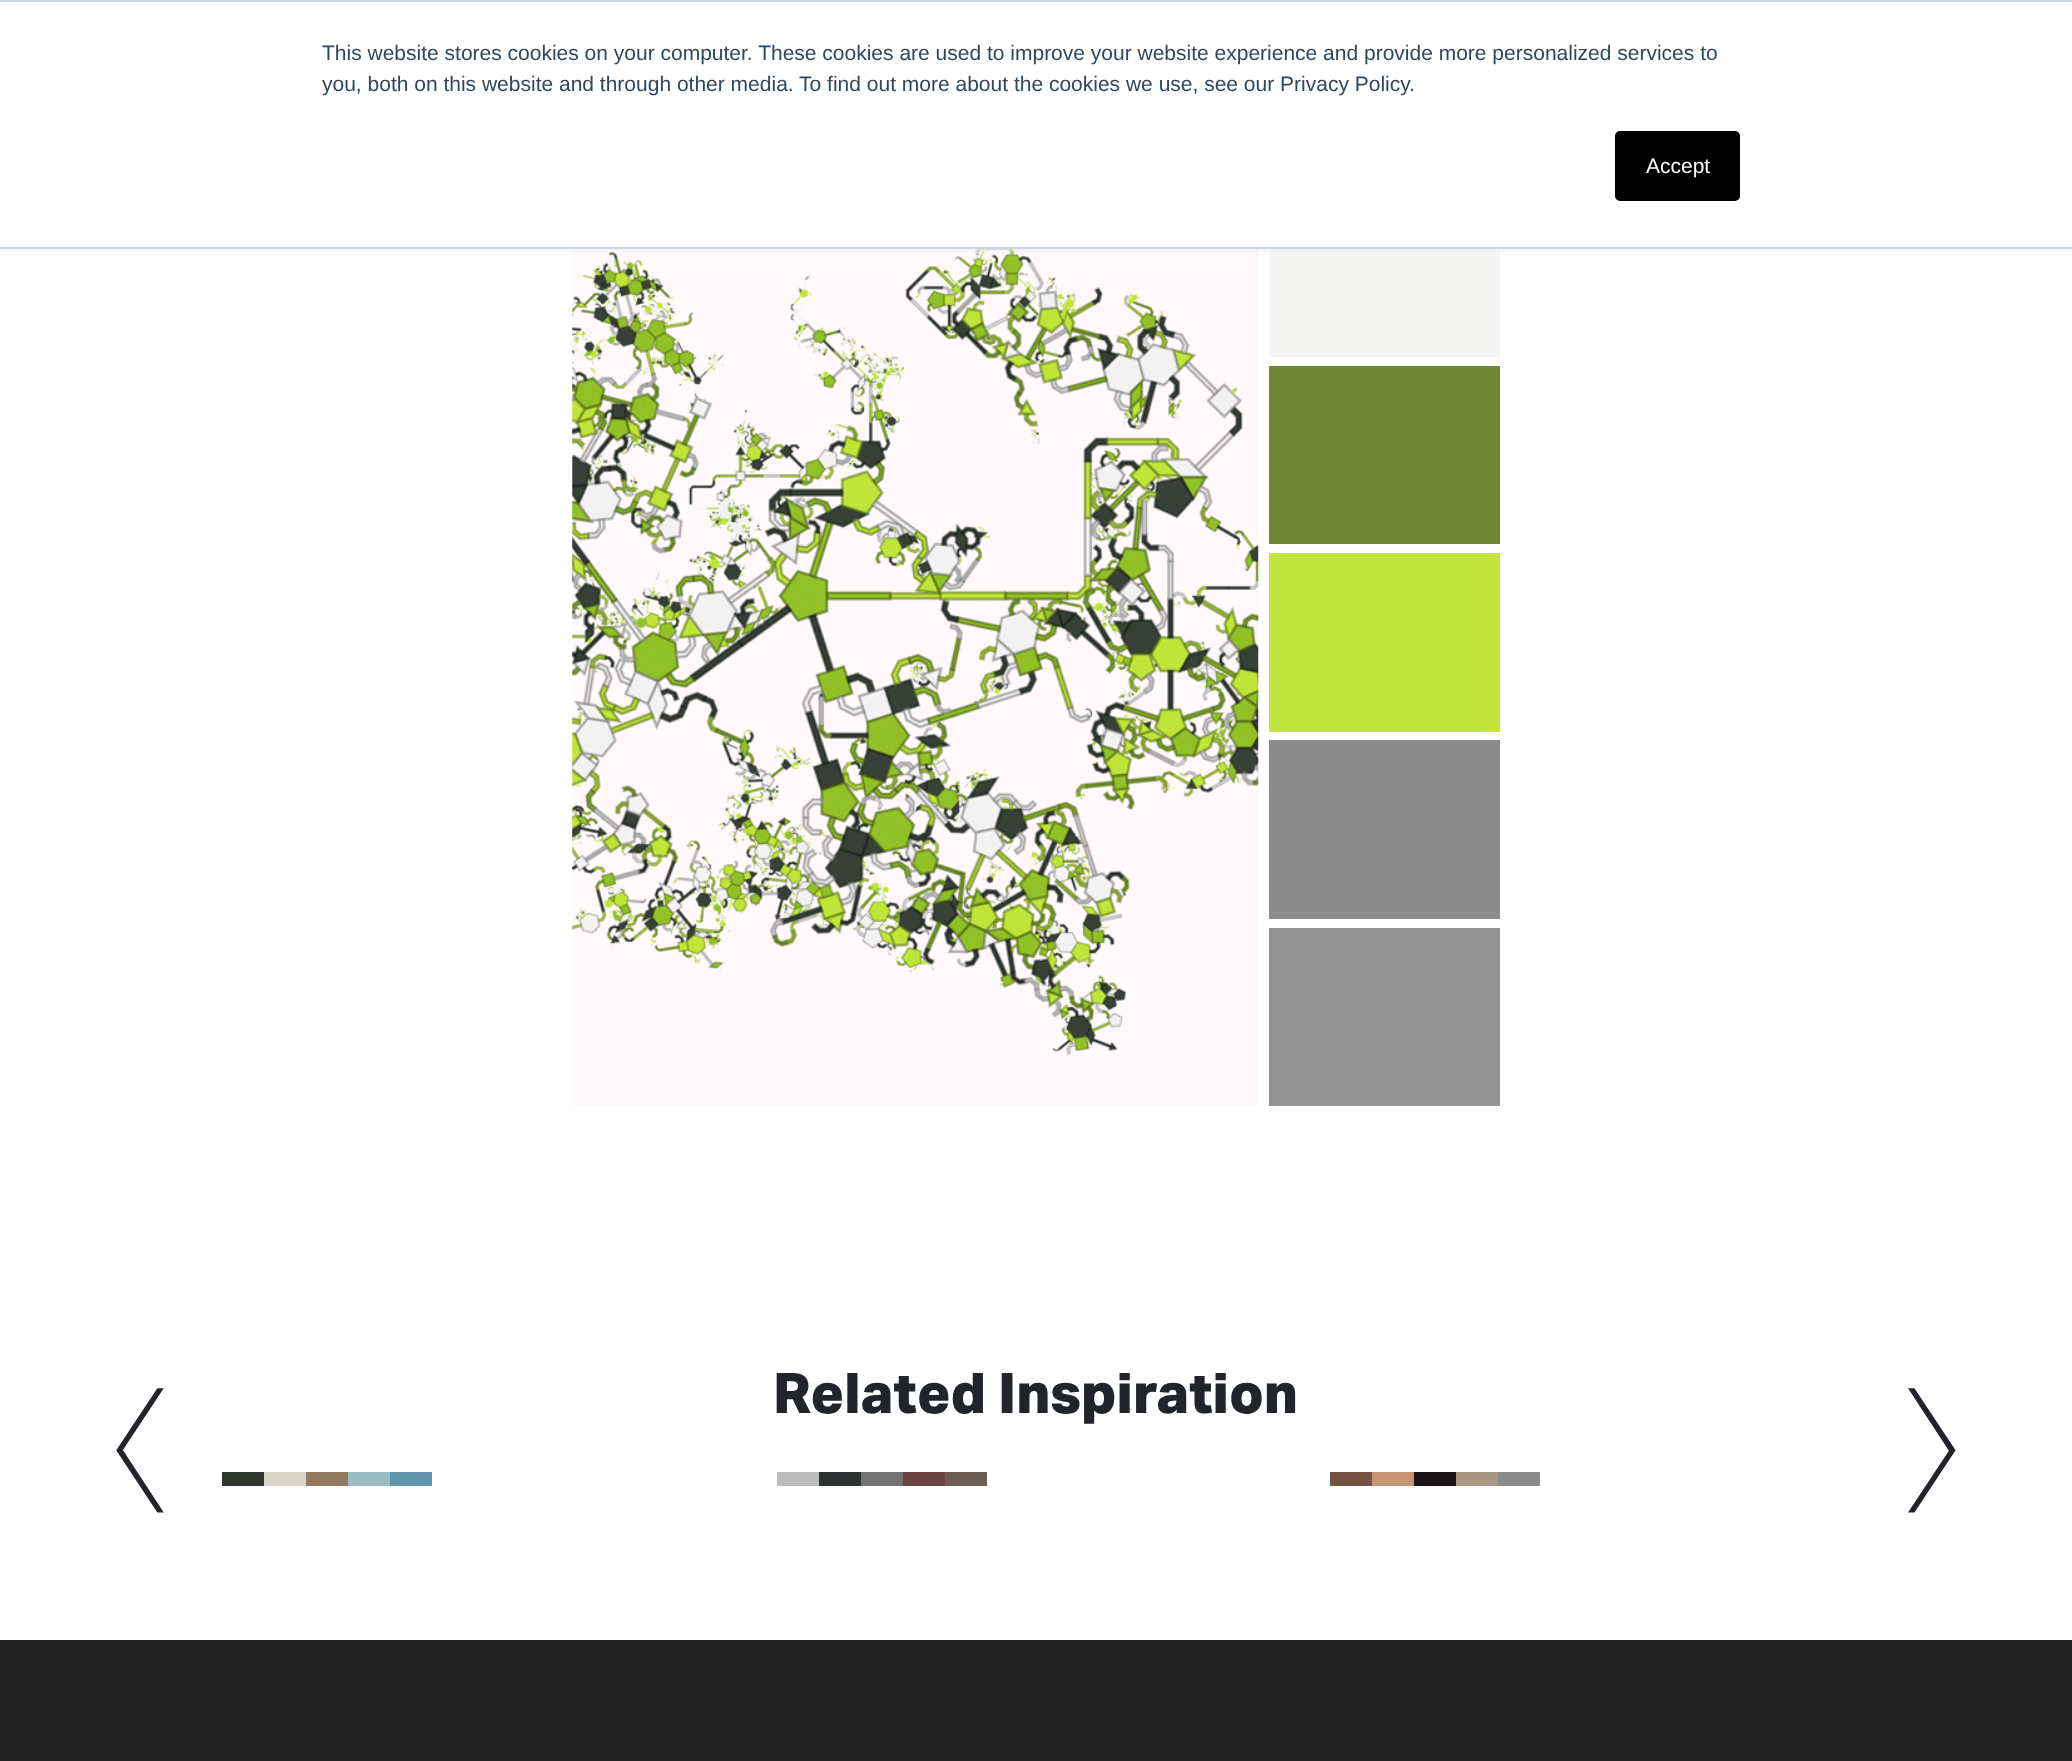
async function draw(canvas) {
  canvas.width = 2072
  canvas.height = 1761
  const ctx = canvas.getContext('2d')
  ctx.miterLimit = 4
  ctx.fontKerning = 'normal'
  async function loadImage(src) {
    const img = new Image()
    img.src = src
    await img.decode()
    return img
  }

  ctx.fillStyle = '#fff'
  ctx.fillRect(0, 0, 2072, 1761)
  ctx.drawImage(await loadImage('image0.png'), 572, 249, 687, 857)
  ctx.fillStyle = '#f5f5f3'
  ctx.fillRect(1269, 249, 231, 108)
  ctx.fillStyle = '#eaf0f6'
  ctx.filter = 'blur(4.5px)'
  ctx.beginPath()
  ctx.rect(0, 2, 2072, 248)
  ctx.fill()
  ctx.filter = 'none'
  ctx.fillStyle = '#fff'
  ctx.fillRect(0, 2, 2072, 245)
  ctx.fillStyle = '#cbd6e2'
  ctx.fillRect(0, 0, 2072, 2)
  ctx.fillRect(0, 247, 2072, 2)
  ctx.font = '21px Liberation Sans'
  ctx.fillStyle = '#33475b'
  ctx.fillText('This website stores cookies on your computer. These cookies are used to improve your website experience and provide more personalized services to', 322, 60)
  ctx.fillText('you, both on this website and through other media. To find out more about the cookies we use, see our Privacy Policy.', 322, 91)
  ctx.fillStyle = '#000'
  ctx.beginPath()
  ctx.roundRect(1616, 132, 123, 68, 4)
  ctx.fill()
  ctx.strokeStyle = '#000'
  ctx.lineWidth = 2
  ctx.stroke()
  ctx.fillStyle = '#fff'
  ctx.fillText('Accept', 1646, 173)
  ctx.fillStyle = '#708738'
  ctx.fillRect(1269, 366, 231, 178)
  ctx.fillStyle = '#c4e53e'
  ctx.fillRect(1269, 553, 231, 179)
  ctx.fillStyle = '#8c8c8c'
  ctx.fillRect(1269, 740, 231, 179)
  ctx.fillStyle = '#949494'
  ctx.fillRect(1269, 928, 231, 178)
  ctx.font = 'bold 56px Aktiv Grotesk'
  ctx.fillStyle = '#212529'
  ctx.fillText('Related Inspiration', 773, 1413)
  ctx.font = '300 280px Aktiv Grotesk'
  ctx.fillText('‹', 105, 1522)
  ctx.fillText('›', 1894, 1522)
  ctx.fillStyle = '#2f362b'
  ctx.fillRect(222, 1472, 42, 14)
  ctx.fillStyle = '#d9d6ca'
  ctx.fillRect(264, 1472, 42, 14)
  ctx.fillStyle = '#917a5d'
  ctx.fillRect(306, 1472, 42, 14)
  ctx.fillStyle = '#9abcc3'
  ctx.fillRect(348, 1472, 42, 14)
  ctx.fillStyle = '#6094aa'
  ctx.fillRect(390, 1472, 42, 14)
  ctx.fillStyle = '#bdbcbc'
  ctx.fillRect(777, 1472, 42, 14)
  ctx.fillStyle = '#2d3131'
  ctx.fillRect(819, 1472, 42, 14)
  ctx.fillStyle = '#727372'
  ctx.fillRect(861, 1472, 42, 14)
  ctx.fillStyle = '#6d4441'
  ctx.fillRect(903, 1472, 42, 14)
  ctx.fillStyle = '#6e5e51'
  ctx.fillRect(945, 1472, 42, 14)
  ctx.fillStyle = '#755241'
  ctx.fillRect(1330, 1472, 42, 14)
  ctx.fillStyle = '#c69576'
  ctx.fillRect(1372, 1472, 42, 14)
  ctx.fillStyle = '#1a1617'
  ctx.fillRect(1414, 1472, 42, 14)
  ctx.fillStyle = '#a89884'
  ctx.fillRect(1456, 1472, 42, 14)
  ctx.fillStyle = '#8c8b8c'
  ctx.fillRect(1498, 1472, 42, 14)
  ctx.fillStyle = '#222'
  ctx.fillRect(0, 1640, 2072, 121)
}

draw(document.querySelector('canvas'))
